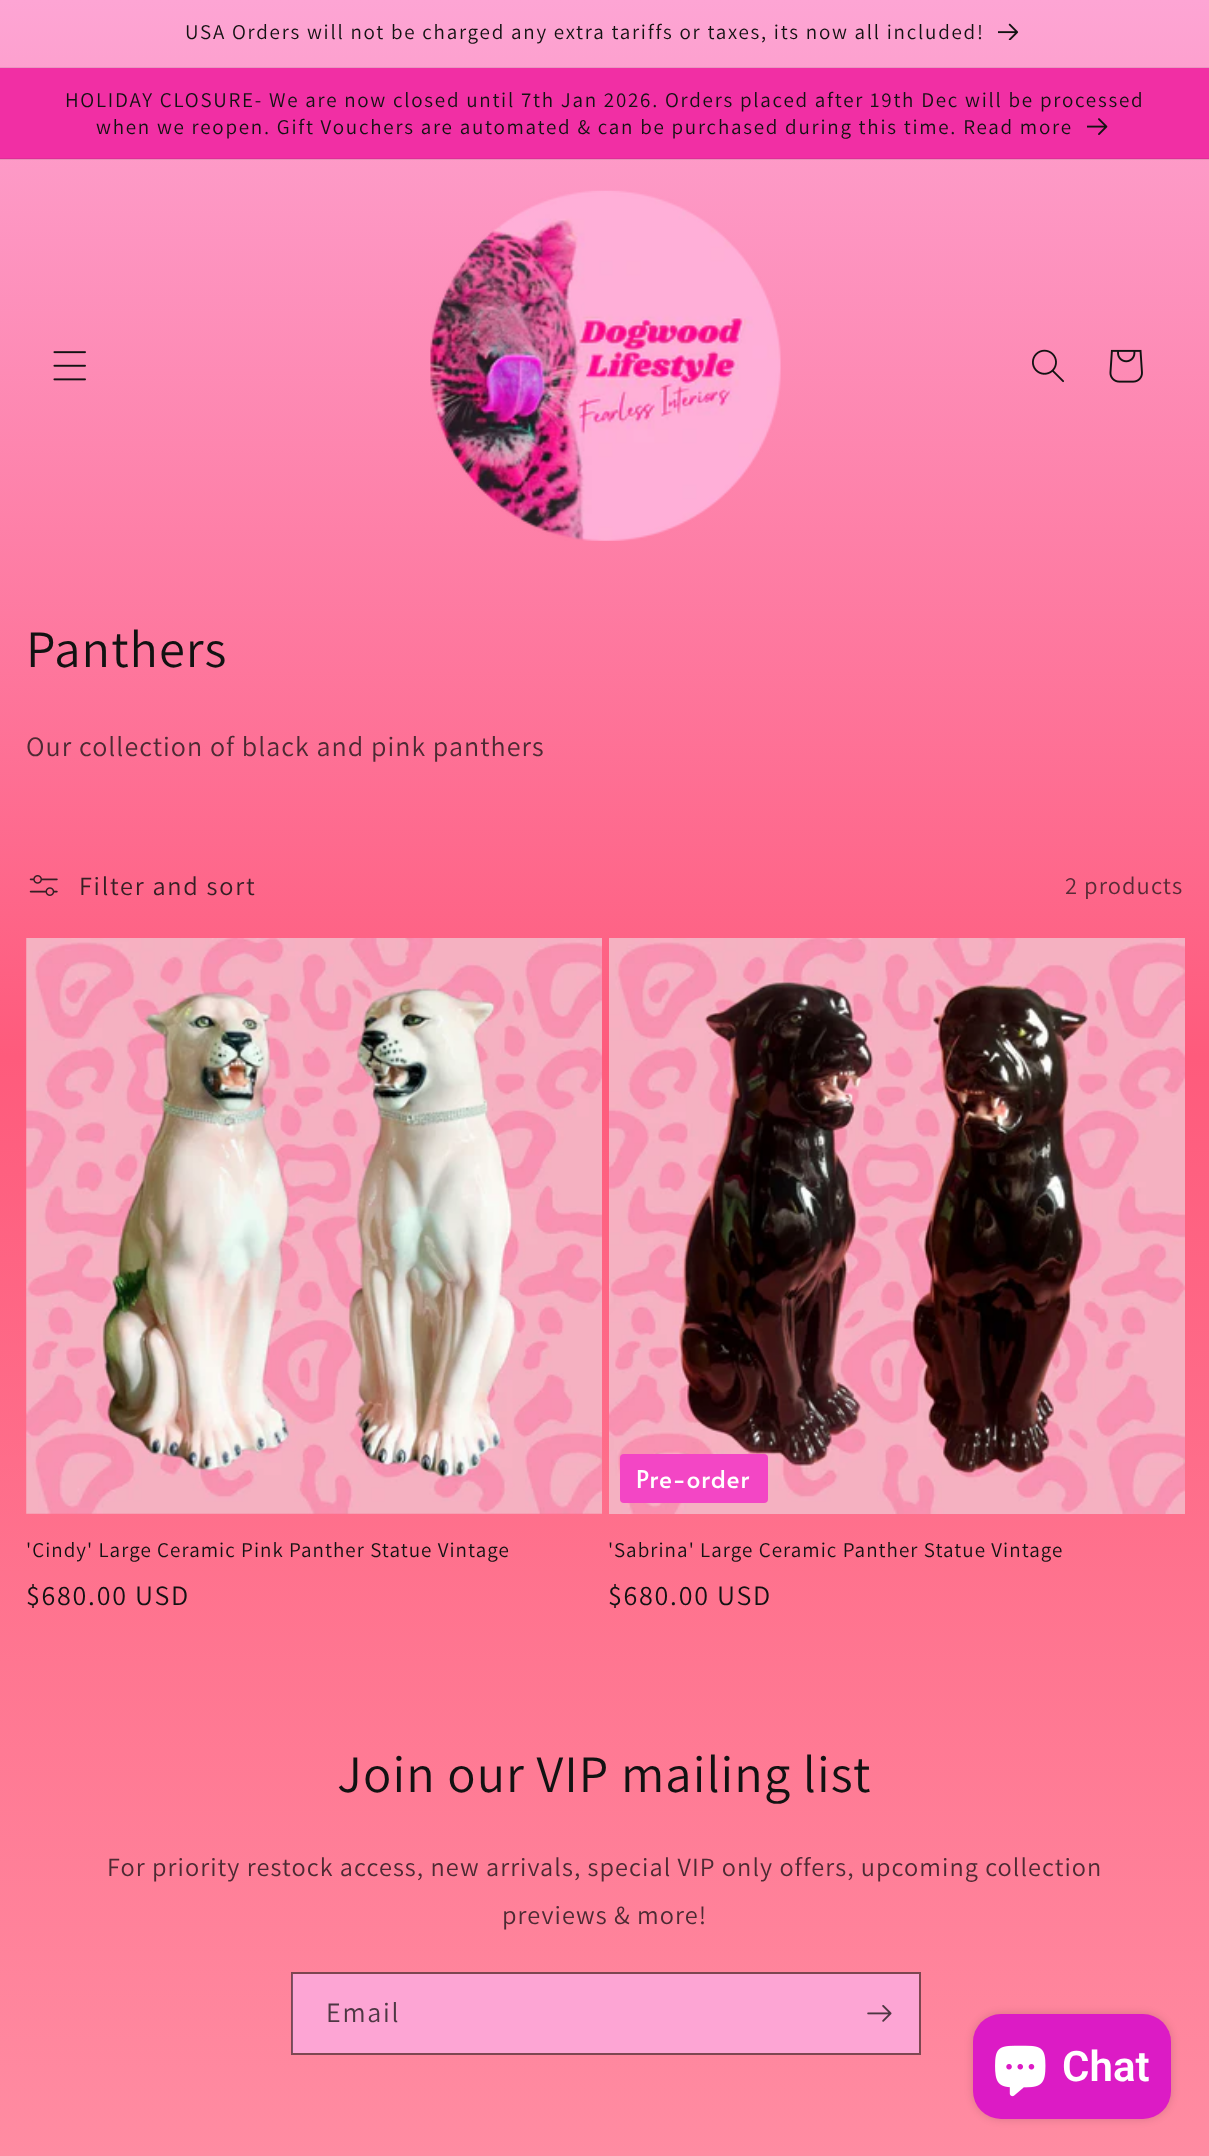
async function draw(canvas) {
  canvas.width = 1209
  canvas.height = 2156
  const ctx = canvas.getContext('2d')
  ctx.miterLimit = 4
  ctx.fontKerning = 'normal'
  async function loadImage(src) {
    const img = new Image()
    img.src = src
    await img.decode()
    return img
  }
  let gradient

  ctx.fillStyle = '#fff'
  ctx.fillRect(0, 0, 1209, 2156)
  gradient = ctx.createLinearGradient(605, 0, 605, 2156)
  gradient.addColorStop(0, '#fda5d4')
  gradient.addColorStop(0.49, '#fe5b7c')
  gradient.addColorStop(1, '#ff8ca2')
  ctx.fillStyle = gradient
  ctx.fillRect(0, 0, 1209, 2156)
  gradient = ctx.createLinearGradient(605, 0, 605, 2156)
  gradient.addColorStop(0, '#ea99c4')
  gradient.addColorStop(0.49, '#eb5574')
  gradient.addColorStop(1, '#ec8296')
  ctx.fillStyle = gradient
  ctx.fillRect(0, 159, 1209, 1)
  ctx.fillStyle = '#ea95bf'
  ctx.fillRect(0, 67, 1209, 1)
  ctx.letterSpacing = '1.75px'
  ctx.font = '21px Assistant'
  ctx.fillStyle = '#121212'
  ctx.fillText('USA Orders will not be charged any extra tariffs or taxes, its now all included!', 185, 39)
  ctx.drawImage(await loadImage('image0.png'), 998, 23, 21, 17)
  ctx.fillStyle = '#f12fa4'
  ctx.fillRect(0, 68, 1209, 90)
  ctx.fillStyle = '#df2d98'
  ctx.fillRect(0, 158, 1209, 1)
  ctx.fillStyle = '#121212'
  ctx.fillText('HOLIDAY CLOSURE- We are now closed until 7th Jan 2026. Orders placed after 19th Dec will be processed', 65, 107)
  ctx.fillText('when we reopen. Gift Vouchers are automated & can be purchased during this time. Read more', 96, 134)
  ctx.drawImage(await loadImage('image1.png'), 1087, 118, 21, 17)
  ctx.drawImage(await loadImage('image2.png'), 53, 351, 33, 30)
  ctx.drawImage(await loadImage('image3.png'), 430, 190, 351, 351)
  ctx.drawImage(await loadImage('image4.png'), 1032, 349, 32, 34)
  ctx.drawImage(await loadImage('image5.png'), 1109, 349, 34, 34)
  ctx.letterSpacing = '1.05px'
  ctx.font = '52.5px Assistant'
  ctx.fillText('Panthers', 26, 667)
  ctx.font = '28px Assistant'
  ctx.fillStyle = '#4d2a33'
  ctx.fillText('Our collection of black and pink panthers', 26, 756)
  ctx.drawImage(await loadImage('image6.png'), 29, 875, 29, 21)
  ctx.letterSpacing = '1.75px'
  ctx.font = '26.25px Assistant'
  ctx.fillStyle = '#351f24'
  ctx.fillText('Filter and sort', 79, 895)
  ctx.letterSpacing = '1.05px'
  ctx.font = '24.5px Assistant'
  ctx.fillStyle = '#592b36'
  ctx.fillText('2 products', 1065, 894)
  ctx.drawImage(await loadImage('image7.png'), 26, 938, 576, 576)
  ctx.font = '21px Assistant'
  ctx.fillStyle = '#121212'
  ctx.fillText('\'Cindy\' Large Ceramic Pink Panther Statue Vintage', 26, 1557)
  ctx.letterSpacing = '1.75px'
  ctx.font = '28px Assistant'
  ctx.fillText('$680.00 USD', 26, 1605)
  ctx.drawImage(await loadImage('image8.png'), 609, 938, 576, 576)
  ctx.fillStyle = '#f346c5'
  ctx.beginPath()
  ctx.roundRect(620, 1454, 148, 49, 4)
  ctx.fill()
  ctx.letterSpacing = '1.05px'
  ctx.font = '24.5px Alata'
  ctx.fillStyle = '#fff'
  ctx.fillText('Pre-order', 636, 1488)
  ctx.font = '21px Assistant'
  ctx.fillStyle = '#121212'
  ctx.fillText('\'Sabrina\' Large Ceramic Panther Statue Vintage', 608, 1557)
  ctx.letterSpacing = '1.75px'
  ctx.font = '28px Assistant'
  ctx.fillText('$680.00 USD', 608, 1605)
  ctx.letterSpacing = '1.05px'
  ctx.font = '52.5px Assistant'
  ctx.fillText('Join our VIP mailing list', 337, 1792)
  ctx.font = '26.25px Assistant'
  ctx.fillStyle = '#4d2a33'
  ctx.fillText('For priority restock access, new arrivals, special VIP only offers, upcoming collection', 107, 1876)
  ctx.fillText('previews & more!', 502, 1924)
  ctx.fillStyle = '#fda5d4'
  ctx.fillRect(292, 1974, 627, 79)
  ctx.strokeStyle = '#1212128c'
  ctx.lineWidth = 2
  ctx.strokeRect(292, 1973, 628, 81)
  ctx.letterSpacing = '1.75px'
  ctx.font = '28px Assistant'
  ctx.fillStyle = '#4d3743'
  ctx.fillText('Email', 326, 2022)
  ctx.drawImage(await loadImage('image9.png'), 867, 2005, 25, 17)
  ctx.fillStyle = '#00000026'
  ctx.filter = 'blur(4.5px)'
  ctx.beginPath()
  ctx.roundRect(973, 2014, 198, 105, 28)
  ctx.fill()
  ctx.filter = 'none'
  ctx.fillStyle = '#dc1bc5'
  ctx.beginPath()
  ctx.roundRect(973, 2014, 198, 105, 28)
  ctx.fill()
  ctx.drawImage(await loadImage('image10.png'), 995, 2045, 51, 52)
  ctx.letterSpacing = '0px'
  ctx.font = '600 42px Roboto'
  ctx.fillStyle = '#fff'
  ctx.fillText('Chat', 1062, 2081)
}

draw(document.querySelector('canvas'))
